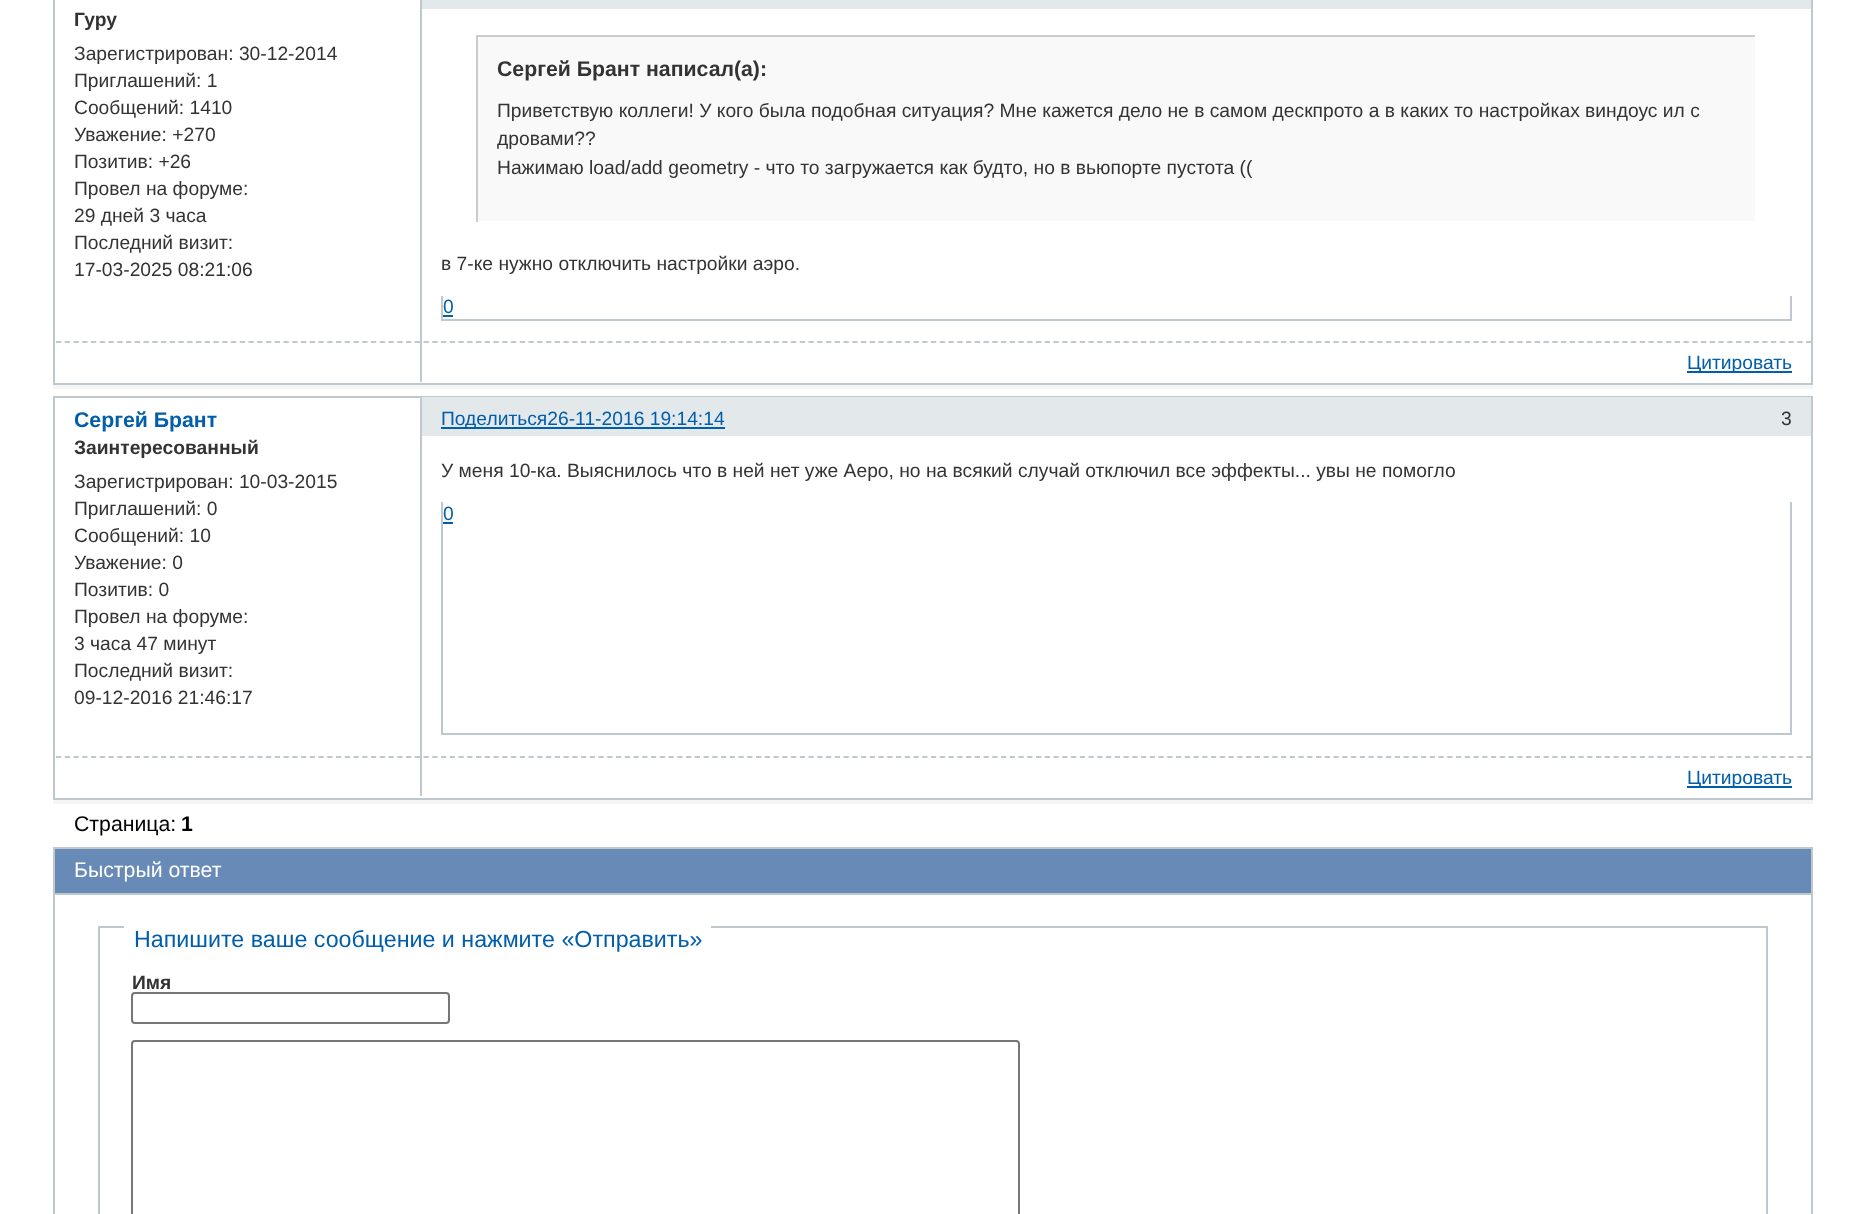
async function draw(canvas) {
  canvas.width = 1865
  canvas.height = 1214
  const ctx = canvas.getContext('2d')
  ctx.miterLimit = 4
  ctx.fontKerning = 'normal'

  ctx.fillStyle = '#fff'
  ctx.fillRect(0, 0, 1865, 1214)
  ctx.fillStyle = '#f5f5f5'
  ctx.fillRect(53, 385, 1760, 4)
  ctx.fillStyle = '#bec8ce'
  ctx.fillRect(1811, 0, 2, 385)
  ctx.fillRect(53, 0, 2, 11)
  ctx.fillStyle = '#e3e8eb'
  ctx.fillRect(422, 0, 1389, 9)
  ctx.fillStyle = '#bec8ce'
  ctx.fillRect(420, 0, 2, 11)
  ctx.fillStyle = '#fff'
  ctx.fillRect(420, 9, 2, 2)
  ctx.fillStyle = '#bec8ce'
  ctx.fillRect(53, 383, 1760, 2)
  ctx.fillRect(53, 9, 2, 376)
  ctx.font = 'bold 19.25px Liberation Sans'
  ctx.fillStyle = '#333'
  ctx.fillText('Гуру', 74, 26)
  ctx.font = '19.25px Liberation Sans'
  ctx.fillText('Зарегистрирован: 30-12-2014', 74, 60)
  ctx.fillText('Приглашений: 1', 74, 87)
  ctx.fillText('Сообщений: 1410', 74, 114)
  ctx.fillText('Уважение: +270', 74, 141)
  ctx.fillText('Позитив: +26', 74, 168)
  ctx.fillText('Провел на форуме:', 74, 195)
  ctx.fillText('29 дней 3 часа', 74, 222)
  ctx.fillText('Последний визит:', 74, 249)
  ctx.fillText('17-03-2025 08:21:06', 74, 276)
  ctx.fillStyle = '#bec8ce'
  ctx.fillRect(420, 9, 2, 373)
  ctx.fillStyle = '#f9f9f9'
  ctx.fillRect(478, 37, 1277, 184)
  ctx.fillStyle = '#ccc'
  ctx.fillRect(476, 35, 1281, 2)
  ctx.fillStyle = '#fff'
  ctx.fillRect(1755, 35, 2, 2)
  ctx.fillStyle = '#ccc'
  ctx.fillRect(476, 35, 2, 187)
  ctx.font = 'bold 21.25px Liberation Sans'
  ctx.fillStyle = '#333'
  ctx.fillText('Сергей Брант написал(а):', 497, 76)
  ctx.font = '19.25px Liberation Sans'
  ctx.fillText('Приветствую коллеги! У кого была подобная ситуация? Мне кажется дело не в самом дескпрото а в каких то настройках виндоус ил с', 497, 117)
  ctx.save()
  ctx.beginPath()
  ctx.rect(497, 96, 1239, 105)
  ctx.clip()
  ctx.fillText('дровами??', 497, 145)
  ctx.restore()
  ctx.fillText('Нажимаю load/add geometry - что то загружается как будто, но в вьюпорте пустота ((', 497, 174)
  ctx.fillText('в 7-ке нужно отключить настройки аэро.', 441, 270)
  ctx.fillStyle = '#bec8ce'
  ctx.fillRect(1790, 296, 2, 24)
  ctx.fillRect(441, 319, 1351, 2)
  ctx.fillRect(441, 296, 2, 24)
  ctx.fillStyle = '#005eab'
  ctx.fillText('0', 443, 313)
  ctx.fillRect(443, 315, 10, 2)
  ctx.beginPath()
  ctx.moveTo(56, 342)
  ctx.lineTo(1811, 342)
  ctx.strokeStyle = '#bec8ce'
  ctx.lineWidth = 1.8
  ctx.setLineDash([5.25, 3.5])
  ctx.stroke()
  ctx.fillRect(1687, 371, 105, 2)
  ctx.fillText('Цитировать', 1687, 369)
  ctx.fillStyle = '#f5f5f5'
  ctx.fillRect(53, 800, 1760, 4)
  ctx.fillStyle = '#bec8ce'
  ctx.fillRect(53, 396, 1760, 2)
  ctx.fillRect(420, 397, 2, 41)
  ctx.fillStyle = '#fff'
  ctx.fillRect(420, 436, 2, 2)
  ctx.fillStyle = '#bec8ce'
  ctx.fillRect(1811, 396, 2, 404)
  ctx.fillRect(53, 798, 1760, 2)
  ctx.fillRect(53, 396, 2, 42)
  ctx.fillRect(53, 436, 2, 364)
  ctx.font = 'bold 21.25px Liberation Sans'
  ctx.fillStyle = '#005eab'
  ctx.fillText('Сергей Брант', 74, 427)
  ctx.font = 'bold 19.25px Liberation Sans'
  ctx.fillStyle = '#333'
  ctx.fillText('Заинтересованный', 74, 454)
  ctx.font = '19.25px Liberation Sans'
  ctx.fillText('Зарегистрирован: 10-03-2015', 74, 488)
  ctx.fillText('Приглашений: 0', 74, 515)
  ctx.fillText('Сообщений: 10', 74, 542)
  ctx.fillText('Уважение: 0', 74, 569)
  ctx.fillText('Позитив: 0', 74, 596)
  ctx.fillText('Провел на форуме:', 74, 623)
  ctx.fillText('3 часа 47 минут', 74, 650)
  ctx.fillText('Последний визит:', 74, 677)
  ctx.fillText('09-12-2016 21:46:17', 74, 704)
  ctx.fillStyle = '#bec8ce'
  ctx.fillRect(420, 436, 2, 360)
  ctx.fillStyle = '#333'
  ctx.fillText('У меня 10-ка. Выяснилось что в ней нет уже Аеро, но на всякий случай отключил все эффекты... увы не помогло', 441, 477)
  ctx.fillStyle = '#bec8ce'
  ctx.fillRect(1790, 502, 2, 233)
  ctx.fillRect(441, 733, 1351, 2)
  ctx.fillRect(441, 502, 2, 233)
  ctx.fillStyle = '#005eab'
  ctx.fillText('0', 443, 520)
  ctx.fillRect(443, 522, 10, 2)
  ctx.beginPath()
  ctx.moveTo(56, 757)
  ctx.lineTo(1811, 757)
  ctx.stroke()
  ctx.fillRect(1687, 786, 105, 2)
  ctx.fillText('Цитировать', 1687, 784)
  ctx.fillStyle = '#e3e8eb'
  ctx.fillRect(422, 397, 1389, 39)
  ctx.fillStyle = '#005eab'
  ctx.fillRect(441, 427, 284, 2)
  ctx.fillText('Поделиться26-11-2016 19:14:14', 441, 425)
  ctx.fillStyle = '#333'
  ctx.fillText('3', 1781, 425)
  ctx.font = '21.25px Liberation Sans'
  ctx.fillStyle = '#000'
  ctx.fillText('Страница:', 74, 831)
  ctx.font = 'bold 21.25px Liberation Sans'
  ctx.fillText('1', 181, 831)
  ctx.fillStyle = '#678ab7'
  ctx.fillRect(55, 849, 1756, 44)
  ctx.fillStyle = '#bec8ce'
  ctx.fillRect(53, 847, 1760, 2)
  ctx.fillRect(1811, 847, 2, 46)
  ctx.fillRect(53, 847, 2, 46)
  ctx.font = '21.25px Liberation Sans'
  ctx.fillStyle = '#fff'
  ctx.fillText('Быстрый ответ', 74, 877)
  ctx.lineWidth = 2
  ctx.setLineDash([])
  ctx.strokeRect(54, 894, 1758, 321)
  ctx.strokeRect(99, 927, 1668, 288)
  ctx.font = '23.25px Liberation Sans'
  ctx.fillStyle = '#005eab'
  ctx.fillText('Напишите ваше сообщение и нажмите «Отправить»', 134, 947)
  ctx.fillStyle = '#fff'
  ctx.fillRect(124, 926, 587, 2)
  ctx.font = 'bold 19.25px Liberation Sans'
  ctx.fillStyle = '#333'
  ctx.fillText('Имя', 132, 989)
  ctx.beginPath()
  ctx.roundRect(132, 993, 317, 30, 3)
  ctx.strokeStyle = '#767676'
  ctx.stroke()
  ctx.beginPath()
  ctx.roundRect(132, 1041, 887, 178, 3)
  ctx.stroke()
}

draw(document.querySelector('canvas'))
